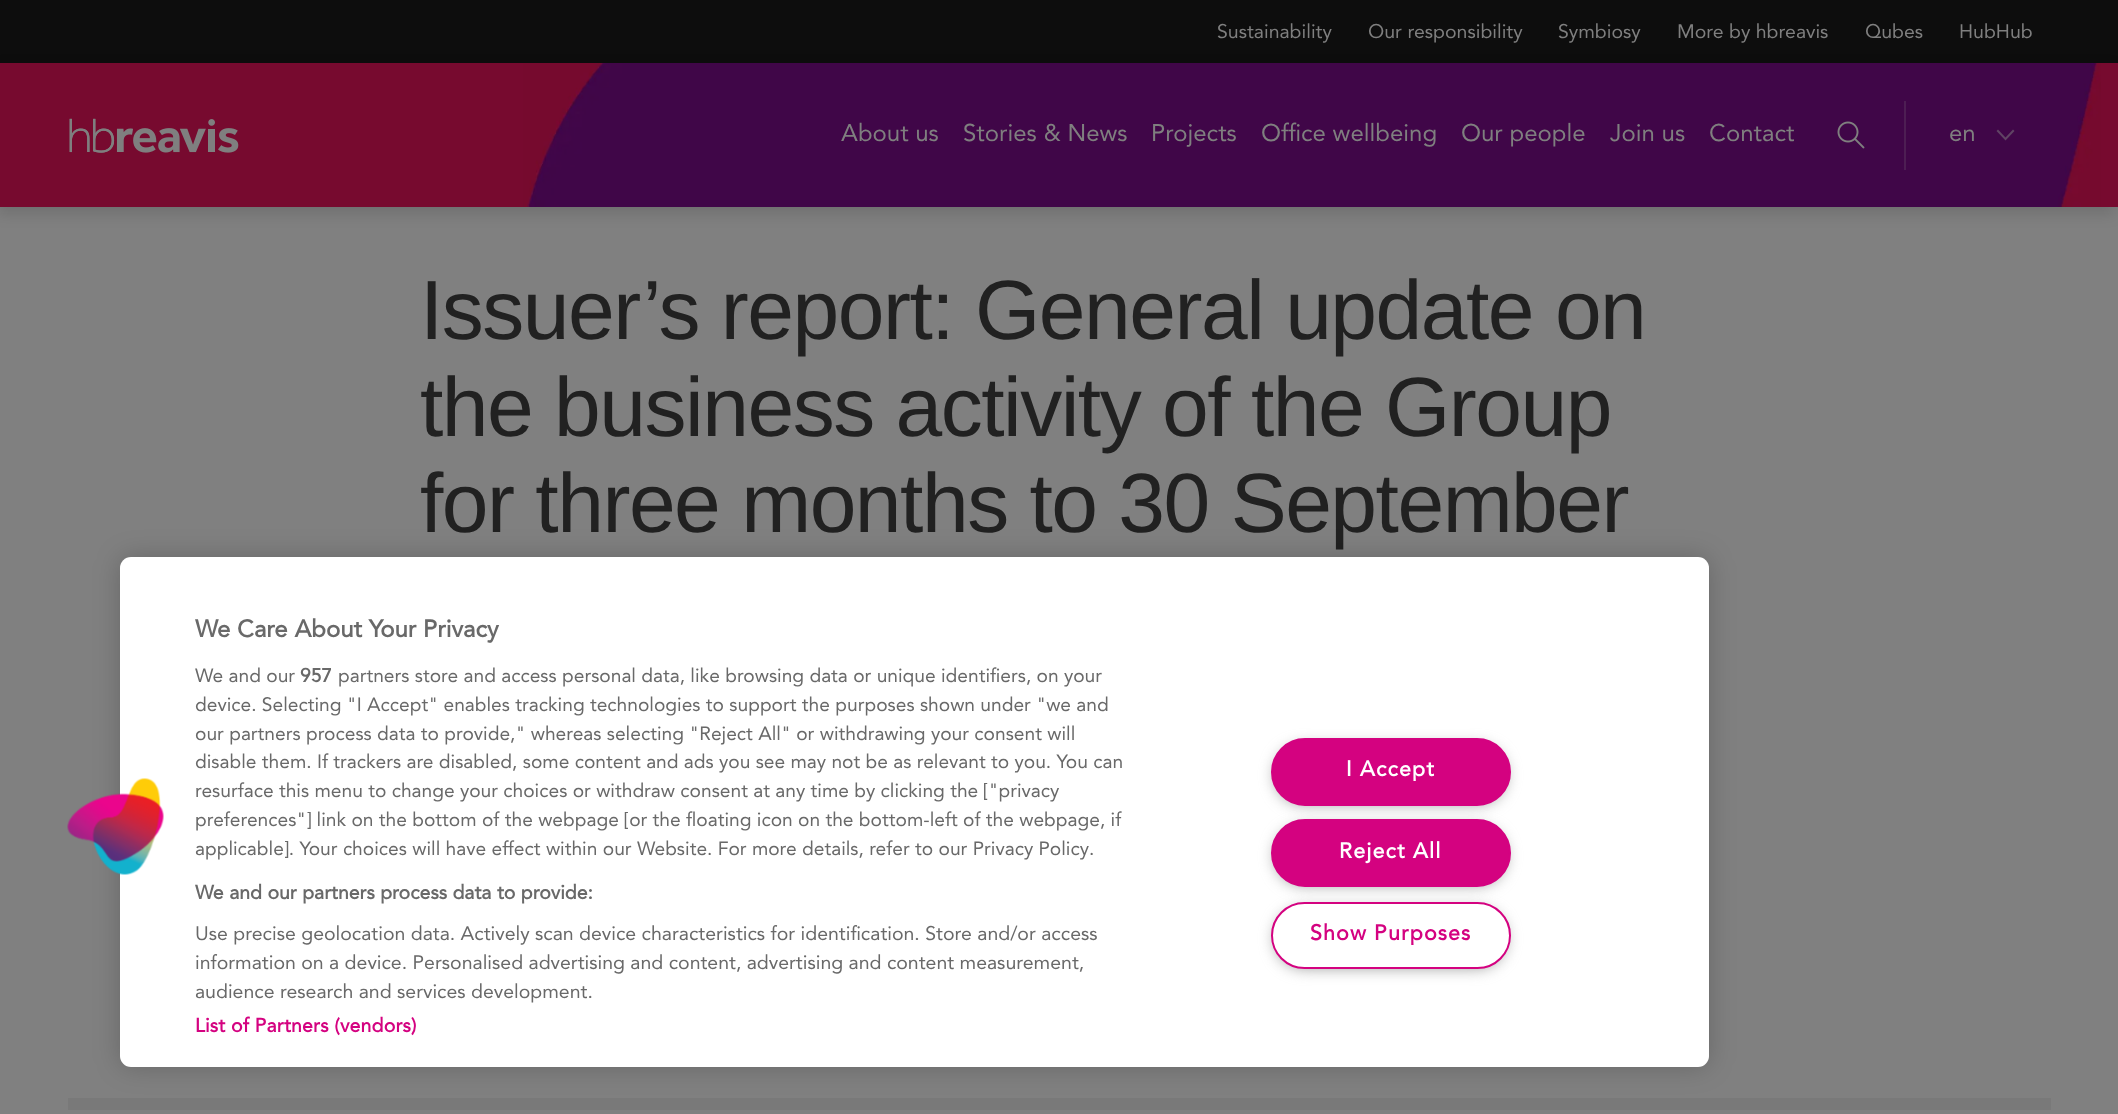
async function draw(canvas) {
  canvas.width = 2118
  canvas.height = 1114
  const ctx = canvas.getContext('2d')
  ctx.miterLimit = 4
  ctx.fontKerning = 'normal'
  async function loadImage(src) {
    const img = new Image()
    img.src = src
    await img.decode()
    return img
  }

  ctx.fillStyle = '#808080'
  ctx.fillRect(0, 0, 2118, 1114)
  ctx.fillStyle = '#0d0d0d'
  ctx.fillRect(0, 0, 2118, 63)
  ctx.font = '19.5px Avenir'
  ctx.fillStyle = '#7f7f7f'
  ctx.fillText('Sustainability', 1217, 38)
  ctx.fillText('Our responsibility', 1368, 38)
  ctx.fillText('Symbiosy', 1558, 38)
  ctx.fillText('More by hbreavis', 1677, 38)
  ctx.fillText('Qubes', 1865, 38)
  ctx.fillText('HubHub', 1959, 38)
  ctx.fillStyle = '#09090926'
  ctx.filter = 'blur(7.5px)'
  ctx.beginPath()
  ctx.rect(-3, 69, 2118, 144)
  ctx.fill()
  ctx.filter = 'none'
  ctx.fillStyle = '#770a2f'
  ctx.fillRect(0, 63, 2118, 144)
  ctx.drawImage(await loadImage('image0.png'), 523, 63, 1578, 144)
  ctx.drawImage(await loadImage('image1.png'), 69, 118, 170, 35)
  ctx.font = '24px Avenir'
  ctx.fillStyle = '#7f7f7f'
  ctx.fillText('About us', 841, 141)
  ctx.fillText('Stories & News', 963, 141)
  ctx.fillText('Projects', 1151, 141)
  ctx.fillText('Office wellbeing', 1261, 141)
  ctx.fillText('Our people', 1461, 141)
  ctx.fillText('Join us', 1610, 141)
  ctx.fillText('Contact', 1709, 141)
  ctx.drawImage(await loadImage('image2.png'), 1837, 121, 28, 28)
  ctx.fillStyle = '#4d1e53'
  ctx.fillRect(1904, 101, 2, 69)
  ctx.fillStyle = '#7f7f7f'
  ctx.fillText('en', 1949, 141)
  ctx.fillStyle = '#604364'
  ctx.beginPath()
  ctx.moveTo(2005.5, 137.5)
  ctx.lineTo(1998, 129.5)
  ctx.lineTo(1996.5, 131)
  ctx.lineTo(2005.5, 140.5)
  ctx.lineTo(2014.5, 131)
  ctx.lineTo(2013, 129.5)
  ctx.closePath()
  ctx.fill('evenodd')
  ctx.letterSpacing = '-1.5px'
  ctx.font = '84px Liberation Sans'
  ctx.fillStyle = '#212121'
  ctx.fillText('Issuer’s report: General update on', 420, 339)
  ctx.fillText('the business activity of the Group', 420, 436)
  ctx.fillText('for three months to 30 September', 420, 532)
  ctx.fillStyle = '#797979'
  ctx.fillRect(68, 1098, 1983, 12)
  ctx.fillStyle = '#00000033'
  ctx.filter = 'blur(13.5px)'
  ctx.beginPath()
  ctx.roundRect(120, 557, 1589, 510, 11)
  ctx.fill()
  ctx.filter = 'none'
  ctx.fillStyle = '#fff'
  ctx.beginPath()
  ctx.roundRect(120, 557, 1589, 510, 11)
  ctx.fill()
  ctx.drawImage(await loadImage('image3.png'), 67, 778, 97, 97)
  ctx.letterSpacing = '0px'
  ctx.font = 'bold 24px Avenir'
  ctx.fillStyle = '#696969'
  ctx.fillText('We Care About Your Privacy', 195, 637)
  ctx.font = '19.2px Avenir'
  ctx.fillText('We and our', 195, 682)
  ctx.font = 'bold 19.2px Avenir'
  ctx.fillText('957', 300, 682)
  ctx.font = '19.2px Avenir'
  ctx.fillText('partners store and access personal data, like browsing data or unique identifiers, on your', 338, 682)
  ctx.fillText('device. Selecting "I Accept" enables tracking technologies to support the purposes shown under "we and', 195, 711)
  ctx.fillText('our partners process data to provide," whereas selecting "Reject All" or withdrawing your consent will', 195, 740)
  ctx.fillText('disable them. If trackers are disabled, some content and ads you see may not be as relevant to you. You can', 195, 768)
  ctx.fillText('resurface this menu to change your choices or withdraw consent at any time by clicking the ["privacy', 195, 797)
  ctx.fillText('preferences"] link on the bottom of the webpage [or the floating icon on the bottom-left of the webpage, if', 195, 826)
  ctx.fillText('applicable]. Your choices will have effect within our Website. For more details, refer to our Privacy Policy.', 195, 855)
  ctx.font = 'bold 19.5px Avenir'
  ctx.fillText('We and our partners process data to provide:', 195, 899)
  ctx.font = '19.5px Avenir'
  ctx.fillText('Use precise geolocation data. Actively scan device characteristics for identification. Store and/or access', 195, 940)
  ctx.fillText('information on a device. Personalised advertising and content, advertising and content measurement,', 195, 969)
  ctx.fillText('audience research and services development.', 195, 998)
  ctx.letterSpacing = '0.2px'
  ctx.font = 'bold 19.5px Avenir'
  ctx.fillStyle = '#d40280'
  ctx.fillText('List of Partners (vendors)', 195, 1032)
  ctx.fillStyle = '#999'
  ctx.filter = 'blur(7.5px)'
  ctx.beginPath()
  ctx.roundRect(1275, 746, 231, 58, 29)
  ctx.fill()
  ctx.filter = 'none'
  ctx.fillStyle = '#d40280'
  ctx.beginPath()
  ctx.roundRect(1272, 739, 238, 66, 33)
  ctx.fill()
  ctx.strokeStyle = '#d40280'
  ctx.lineWidth = 2
  ctx.stroke()
  ctx.letterSpacing = '1.1px'
  ctx.font = 'bold 21.5px Avenir'
  ctx.fillStyle = '#fff'
  ctx.fillText('I Accept', 1346, 776)
  ctx.fillStyle = '#999'
  ctx.filter = 'blur(7.5px)'
  ctx.beginPath()
  ctx.roundRect(1275, 827, 231, 58, 29)
  ctx.fill()
  ctx.filter = 'none'
  ctx.fillStyle = '#d40280'
  ctx.beginPath()
  ctx.roundRect(1272, 820, 238, 66, 33)
  ctx.fill()
  ctx.stroke()
  ctx.fillStyle = '#fff'
  ctx.fillText('Reject All', 1339, 858)
  ctx.fillStyle = '#999'
  ctx.filter = 'blur(7.5px)'
  ctx.beginPath()
  ctx.roundRect(1275, 909, 231, 59, 29.5)
  ctx.fill()
  ctx.filter = 'none'
  ctx.fillStyle = '#fff'
  ctx.beginPath()
  ctx.roundRect(1272, 903, 238, 65, 32.5)
  ctx.fill()
  ctx.stroke()
  ctx.fillStyle = '#d40280'
  ctx.fillText('Show Purposes', 1310, 940)
}

draw(document.querySelector('canvas'))
